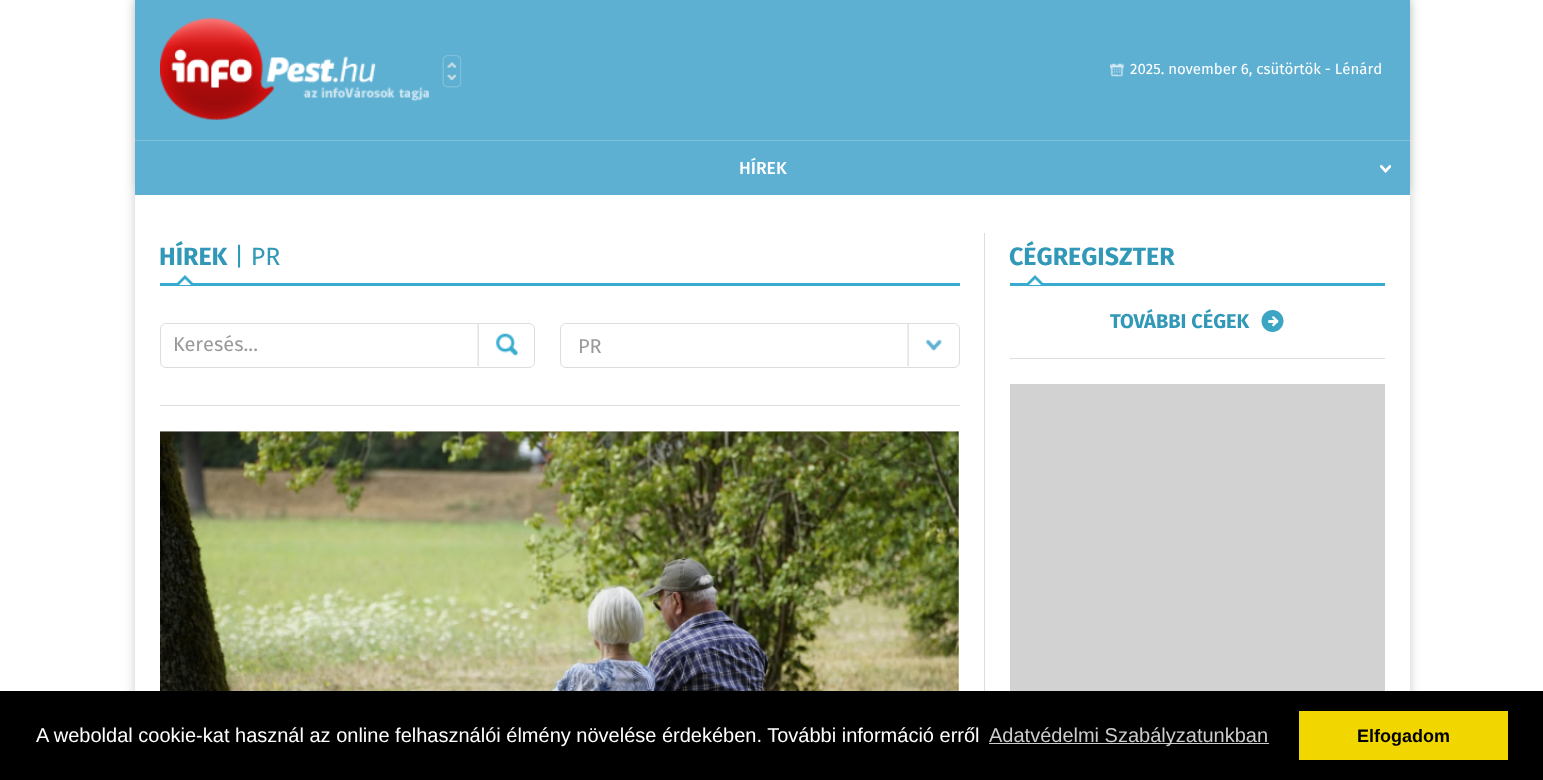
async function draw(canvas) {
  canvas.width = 1543
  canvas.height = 780
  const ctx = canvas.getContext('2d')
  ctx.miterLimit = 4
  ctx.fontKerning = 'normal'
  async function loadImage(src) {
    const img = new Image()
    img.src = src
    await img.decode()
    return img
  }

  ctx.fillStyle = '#fff'
  ctx.fillRect(0, 0, 1543, 780)
  ctx.fillStyle = '#00000033'
  ctx.filter = 'blur(6px)'
  ctx.beginPath()
  ctx.rect(135, 0, 1275, 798)
  ctx.fill()
  ctx.filter = 'none'
  ctx.fillStyle = '#00000017'
  ctx.filter = 'blur(4.5px)'
  ctx.beginPath()
  ctx.rect(135, -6, 1275, 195)
  ctx.fill()
  ctx.filter = 'none'
  ctx.fillStyle = '#5eb0d2'
  ctx.fillRect(135, 0, 1275, 195)
  ctx.drawImage(await loadImage('image0.png'), 160, 17, 269, 103)
  ctx.drawImage(await loadImage('image1.png'), 442, 55, 20, 33)
  ctx.drawImage(await loadImage('image2.png'), 1110, 63, 14, 14)
  ctx.font = '15px Fira Sans'
  ctx.fillStyle = '#fff'
  ctx.fillText('2025. november 6, csütörtök - Lénárd', 1130, 74)
  ctx.fillStyle = '#7ec0db'
  ctx.fillRect(135, 140, 1275, 1)
  ctx.drawImage(await loadImage('image3.png'), 1380, 165, 11, 8)
  ctx.font = '500 17.5px Fira Sans'
  ctx.fillStyle = '#fff'
  ctx.fillText('HÍREK', 739, 174)
  ctx.fillRect(135, 195, 1275, 496)
  ctx.fillStyle = '#ddd'
  ctx.fillRect(984, 233, 1, 458)
  ctx.fillStyle = '#38acd0'
  ctx.fillRect(160, 283, 800, 3)
  ctx.font = 'bold 25px Fira Sans'
  ctx.fillStyle = '#3198b8'
  ctx.fillText('HÍREK', 159, 265)
  ctx.font = '25px Fira Sans'
  ctx.fillText('| PR', 234, 265)
  ctx.fillStyle = '#38acd0'
  ctx.beginPath()
  ctx.moveTo(195, 285)
  ctx.lineTo(175, 285)
  ctx.lineTo(185, 275)
  ctx.closePath()
  ctx.fill()
  ctx.fillStyle = '#fff'
  ctx.beginPath()
  ctx.moveTo(191, 285)
  ctx.lineTo(179, 285)
  ctx.lineTo(185, 279)
  ctx.closePath()
  ctx.fill()
  ctx.fillStyle = '#ddd'
  ctx.fillRect(160, 405, 800, 1)
  ctx.beginPath()
  ctx.roundRect(160.5, 323.5, 374, 44, 5.5)
  ctx.strokeStyle = '#ddd'
  ctx.stroke()
  ctx.font = '20px Fira Sans'
  ctx.fillStyle = '#9a9a9a'
  ctx.fillText('Keresés...', 173, 351)
  ctx.drawImage(await loadImage('image4.png'), 477, 324, 41, 43)
  ctx.drawImage(await loadImage('image5.png'), 907, 324, 35, 43)
  ctx.beginPath()
  ctx.roundRect(560.5, 323.5, 399, 44, 5.5)
  ctx.stroke()
  ctx.fillText('PR', 578, 353)
  ctx.drawImage(await loadImage('image6.png'), 160, 431, 799, 260)
  ctx.fillStyle = '#38acd0'
  ctx.fillRect(1010, 283, 375, 3)
  ctx.font = 'bold 25px Fira Sans'
  ctx.fillStyle = '#3198b8'
  ctx.fillText('CÉGREGISZTER', 1009, 265)
  ctx.fillStyle = '#38acd0'
  ctx.beginPath()
  ctx.moveTo(1045, 285)
  ctx.lineTo(1025, 285)
  ctx.lineTo(1035, 275)
  ctx.closePath()
  ctx.fill()
  ctx.fillStyle = '#fff'
  ctx.beginPath()
  ctx.moveTo(1041, 285)
  ctx.lineTo(1029, 285)
  ctx.lineTo(1035, 279)
  ctx.closePath()
  ctx.fill()
  ctx.fillStyle = '#ddd'
  ctx.fillRect(1010, 358, 375, 1)
  ctx.drawImage(await loadImage('image7.png'), 1261, 310, 23, 22)
  ctx.font = 'bold 20px Fira Sans'
  ctx.fillStyle = '#3198b8'
  ctx.fillText('TOVÁBBI CÉGEK', 1110, 328)
  ctx.fillStyle = '#d2d2d2'
  ctx.fillRect(1010, 384, 375, 307)
  ctx.fillStyle = '#000'
  ctx.fillRect(0, 691, 1543, 89)
  ctx.font = '20px Liberation Sans'
  ctx.fillStyle = '#fff'
  ctx.fillText('A weboldal cookie-kat használ az online felhasználói élmény növelése érdekében. További információ erről', 36, 742)
  ctx.fillStyle = '#ccc'
  ctx.fillRect(989, 743, 280, 1)
  ctx.fillText('Adatvédelmi Szabályzatunkban', 989, 742)
  ctx.fillStyle = '#f1d600'
  ctx.fillRect(1299, 711, 209, 49)
  ctx.font = 'bold 18px Liberation Sans'
  ctx.fillStyle = '#000'
  ctx.fillText('Elfogadom', 1357, 742)
}

draw(document.querySelector('canvas'))
